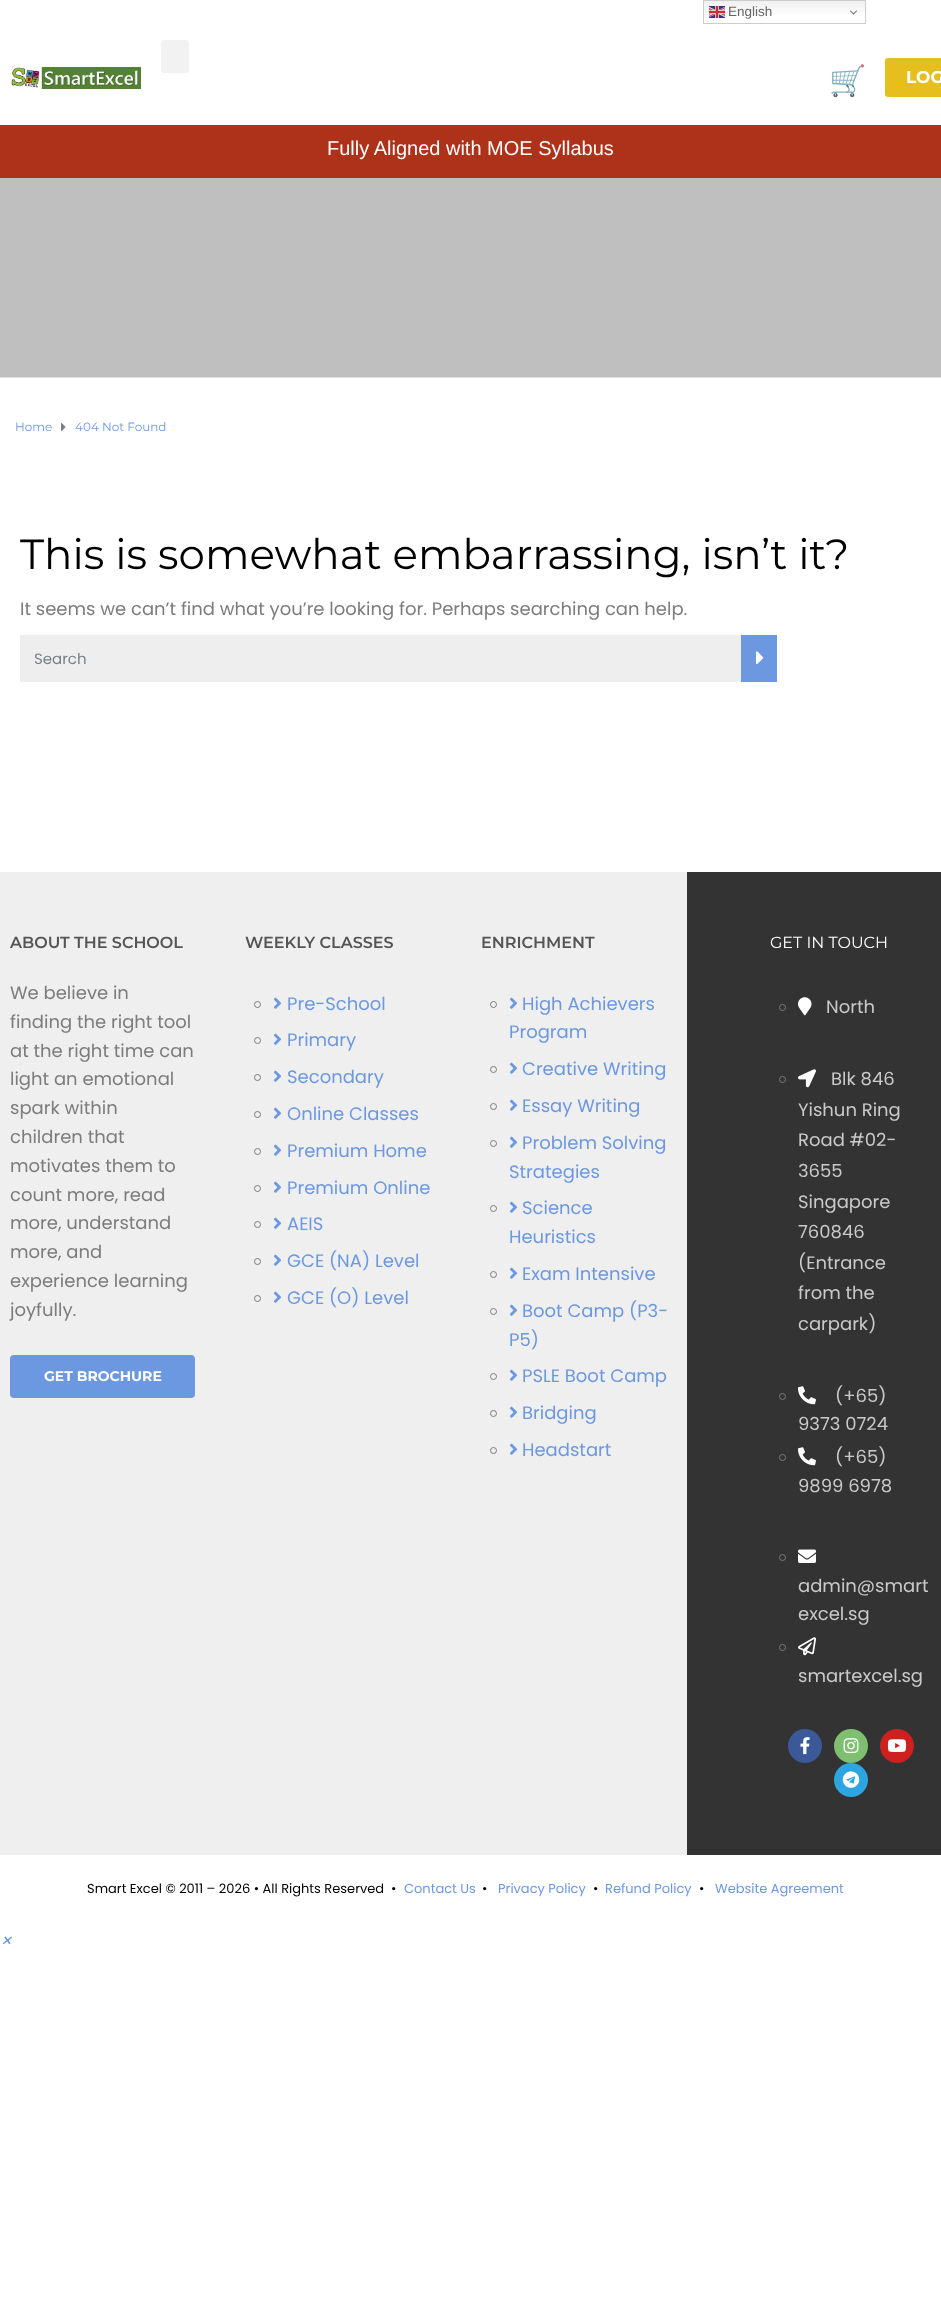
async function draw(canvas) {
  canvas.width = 941
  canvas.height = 2303
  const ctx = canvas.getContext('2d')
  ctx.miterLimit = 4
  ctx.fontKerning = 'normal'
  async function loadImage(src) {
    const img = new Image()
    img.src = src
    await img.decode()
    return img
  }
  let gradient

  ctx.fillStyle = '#fff'
  ctx.fillRect(0, 0, 941, 2303)
  gradient = ctx.createLinearGradient(785, 0, 785, 24)
  gradient.addColorStop(0, '#efefef')
  gradient.addColorStop(0.7, '#fff')
  ctx.fillStyle = gradient
  ctx.fillRect(704, 1, 161, 13)
  ctx.strokeStyle = '#ccc'
  ctx.strokeRect(703.5, 0.5, 162, 23)
  ctx.drawImage(await loadImage('image0.png'), 709, 6, 16, 12)
  ctx.font = '13.5px Liberation Sans'
  ctx.fillStyle = '#666'
  ctx.fillText('English', 728, 16)
  ctx.drawImage(await loadImage('image1.png'), 850, 10, 7, 5)
  ctx.fillStyle = '#f2f2f2'
  ctx.beginPath()
  ctx.roundRect(161, 40, 28, 33, 3)
  ctx.fill()
  ctx.drawImage(await loadImage('image2.png'), 11, 67, 130, 22)
  ctx.font = 'bold 30px Noto Color Emoji'
  ctx.fillStyle = '#0a0a0a'
  ctx.fillText('🛒', 829, 91)
  ctx.fillStyle = '#e6be1e'
  ctx.beginPath()
  ctx.roundRect(885, 58, 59, 39, 3)
  ctx.fill()
  ctx.font = 'bold 17px Montserrat'
  ctx.fillStyle = '#fff'
  ctx.fillText('LOG', 906, 83)
  ctx.fillStyle = '#ae3219'
  ctx.fillRect(0, 125, 941, 53)
  ctx.font = '20px Liberation Sans'
  ctx.fillStyle = '#fff'
  ctx.fillText('Fully Aligned with MOE Syllabus', 327, 155)
  ctx.fillStyle = '#bfbfbf'
  ctx.fillRect(0, 178, 941, 199)
  ctx.fillStyle = '#e1e1e1'
  ctx.fillRect(0, 377, 941, 1)
  ctx.font = '12px Montserrat'
  ctx.fillStyle = '#6c98e1'
  ctx.fillText('Home', 15, 431)
  ctx.drawImage(await loadImage('image3.png'), 61, 423, 5, 8)
  ctx.fillText('404 Not Found', 75, 431)
  ctx.font = '42px Montserrat'
  ctx.fillStyle = '#000'
  ctx.fillText('This is somewhat embarrassing, isn’t it?', 20, 569)
  ctx.font = '18px Poppins'
  ctx.fillStyle = '#7c7c7c'
  ctx.fillText('It seems we can’t find what you’re looking for. Perhaps searching can help.', 20, 615)
  ctx.fillStyle = '#eee'
  ctx.fillRect(20, 635, 721, 47)
  ctx.font = '15px Poppins'
  ctx.fillStyle = '#7b8085'
  ctx.fillText('Search', 34, 664)
  ctx.fillStyle = '#6c98e1'
  ctx.fillRect(741, 635, 36, 47)
  ctx.drawImage(await loadImage('image4.png'), 756, 651, 8, 14)
  ctx.fillStyle = '#efefef'
  ctx.fillRect(0, 872, 687, 983)
  ctx.fillStyle = '#333'
  ctx.fillRect(687, 872, 254, 983)
  ctx.font = '600 16px Montserrat'
  ctx.fillStyle = '#555'
  ctx.fillText('ABOUT THE SCHOOL', 10, 948)
  ctx.font = '18px Poppins'
  ctx.fillStyle = '#7c7c7c'
  ctx.fillText('We believe in', 10, 999)
  ctx.fillText('finding the right tool', 10, 1028)
  ctx.fillText('at the right time can', 10, 1057)
  ctx.fillText('light an emotional', 10, 1085)
  ctx.fillText('spark within', 10, 1114)
  ctx.fillText('children that', 10, 1143)
  ctx.fillText('motivates them to', 10, 1172)
  ctx.fillText('count more, read', 10, 1201)
  ctx.fillText('more, understand', 10, 1229)
  ctx.fillText('more, and', 10, 1258)
  ctx.fillText('experience learning', 10, 1287)
  ctx.fillText('joyfully.', 10, 1316)
  ctx.fillStyle = '#6c98e1'
  ctx.beginPath()
  ctx.roundRect(10, 1355, 185, 43, 4)
  ctx.fill()
  ctx.font = 'bold 14px Montserrat'
  ctx.fillStyle = '#fff'
  ctx.fillText('GET BROCHURE', 44, 1381)
  ctx.font = '600 16px Montserrat'
  ctx.fillStyle = '#555'
  ctx.fillText('WEEKLY CLASSES', 245, 948)
  ctx.beginPath()
  ctx.arc(257.5, 1004.5, 3, 0, 2 * Math.PI)
  ctx.strokeStyle = '#7c7c7c'
  ctx.stroke()
  ctx.drawImage(await loadImage('image5.png'), 273, 997, 9, 12)
  ctx.font = '18px Poppins'
  ctx.fillStyle = '#6c98e1'
  ctx.fillText('Pre-School', 287, 1010)
  ctx.beginPath()
  ctx.arc(257.5, 1040.5, 3, 0, 2 * Math.PI)
  ctx.stroke()
  ctx.drawImage(await loadImage('image5.png'), 273, 1033, 9, 12)
  ctx.fillText('Primary', 287, 1046)
  ctx.beginPath()
  ctx.arc(257.5, 1077.5, 3, 0, 2 * Math.PI)
  ctx.stroke()
  ctx.drawImage(await loadImage('image5.png'), 273, 1070, 9, 12)
  ctx.fillText('Secondary', 287, 1083)
  ctx.beginPath()
  ctx.arc(257.5, 1114.5, 3, 0, 2 * Math.PI)
  ctx.stroke()
  ctx.drawImage(await loadImage('image5.png'), 273, 1107, 9, 12)
  ctx.fillText('Online Classes', 287, 1120)
  ctx.beginPath()
  ctx.arc(257.5, 1151.5, 3, 0, 2 * Math.PI)
  ctx.stroke()
  ctx.drawImage(await loadImage('image5.png'), 273, 1144, 9, 12)
  ctx.fillText('Premium Home', 287, 1157)
  ctx.beginPath()
  ctx.arc(257.5, 1188.5, 3, 0, 2 * Math.PI)
  ctx.stroke()
  ctx.drawImage(await loadImage('image5.png'), 273, 1181, 9, 12)
  ctx.fillText('Premium Online', 287, 1194)
  ctx.beginPath()
  ctx.arc(257.5, 1224.5, 3, 0, 2 * Math.PI)
  ctx.stroke()
  ctx.drawImage(await loadImage('image5.png'), 273, 1217, 9, 12)
  ctx.fillText('AEIS', 287, 1230)
  ctx.beginPath()
  ctx.arc(257.5, 1261.5, 3, 0, 2 * Math.PI)
  ctx.stroke()
  ctx.drawImage(await loadImage('image5.png'), 273, 1254, 9, 12)
  ctx.fillText('GCE (NA) Level', 287, 1267)
  ctx.beginPath()
  ctx.arc(257.5, 1298.5, 3, 0, 2 * Math.PI)
  ctx.stroke()
  ctx.drawImage(await loadImage('image5.png'), 273, 1291, 9, 12)
  ctx.fillText('GCE (O) Level', 287, 1304)
  ctx.font = '600 16px Montserrat'
  ctx.fillStyle = '#555'
  ctx.fillText('ENRICHMENT', 481, 948)
  ctx.beginPath()
  ctx.arc(493.5, 1004.5, 3, 0, 2 * Math.PI)
  ctx.stroke()
  ctx.drawImage(await loadImage('image5.png'), 509, 997, 9, 12)
  ctx.font = '18px Poppins'
  ctx.fillStyle = '#6c98e1'
  ctx.fillText('High Achievers', 522, 1010)
  ctx.fillText('Program', 509, 1038)
  ctx.beginPath()
  ctx.arc(493.5, 1069.5, 3, 0, 2 * Math.PI)
  ctx.stroke()
  ctx.drawImage(await loadImage('image5.png'), 509, 1062, 9, 12)
  ctx.fillText('Creative Writing', 522, 1075)
  ctx.beginPath()
  ctx.arc(493.5, 1106.5, 3, 0, 2 * Math.PI)
  ctx.stroke()
  ctx.drawImage(await loadImage('image5.png'), 509, 1099, 9, 12)
  ctx.fillText('Essay Writing', 522, 1112)
  ctx.beginPath()
  ctx.arc(493.5, 1143.5, 3, 0, 2 * Math.PI)
  ctx.stroke()
  ctx.drawImage(await loadImage('image5.png'), 509, 1136, 9, 12)
  ctx.fillText('Problem Solving', 522, 1149)
  ctx.fillText('Strategies', 509, 1178)
  ctx.beginPath()
  ctx.arc(493.5, 1208.5, 3, 0, 2 * Math.PI)
  ctx.stroke()
  ctx.drawImage(await loadImage('image5.png'), 509, 1201, 9, 12)
  ctx.fillText('Science', 522, 1214)
  ctx.fillText('Heuristics', 509, 1243)
  ctx.beginPath()
  ctx.arc(493.5, 1274.5, 3, 0, 2 * Math.PI)
  ctx.stroke()
  ctx.drawImage(await loadImage('image5.png'), 509, 1267, 9, 12)
  ctx.fillText('Exam Intensive', 522, 1280)
  ctx.beginPath()
  ctx.arc(493.5, 1311.5, 3, 0, 2 * Math.PI)
  ctx.stroke()
  ctx.drawImage(await loadImage('image5.png'), 509, 1304, 9, 12)
  ctx.fillText('Boot Camp (P3-', 522, 1317)
  ctx.fillText('P5)', 509, 1346)
  ctx.beginPath()
  ctx.arc(493.5, 1376.5, 3, 0, 2 * Math.PI)
  ctx.stroke()
  ctx.drawImage(await loadImage('image5.png'), 509, 1369, 9, 12)
  ctx.fillText('PSLE Boot Camp', 522, 1382)
  ctx.beginPath()
  ctx.arc(493.5, 1413.5, 3, 0, 2 * Math.PI)
  ctx.stroke()
  ctx.drawImage(await loadImage('image5.png'), 509, 1406, 9, 12)
  ctx.fillText('Bridging', 522, 1419)
  ctx.beginPath()
  ctx.arc(493.5, 1450.5, 3, 0, 2 * Math.PI)
  ctx.stroke()
  ctx.drawImage(await loadImage('image5.png'), 509, 1443, 9, 12)
  ctx.fillText('Headstart', 522, 1456)
  ctx.font = '16px Montserrat'
  ctx.fillStyle = '#fff'
  ctx.fillText('GET IN TOUCH', 770, 948)
  ctx.beginPath()
  ctx.arc(782.5, 1007.5, 3, 0, 2 * Math.PI)
  ctx.stroke()
  ctx.drawImage(await loadImage('image6.png'), 798, 997, 14, 19)
  ctx.font = '18px Poppins'
  ctx.fillStyle = '#cacaca'
  ctx.fillText('North', 826, 1013)
  ctx.beginPath()
  ctx.arc(782.5, 1079.5, 3, 0, 2 * Math.PI)
  ctx.stroke()
  ctx.drawImage(await loadImage('image7.png'), 798, 1069, 18, 19)
  ctx.fillText('Blk 846', 831, 1085)
  ctx.fillText('Yishun Ring', 798, 1116)
  ctx.fillText('Road #02-', 798, 1146)
  ctx.fillText('3655', 798, 1177)
  ctx.fillText('Singapore', 798, 1208)
  ctx.fillText('760846', 798, 1238)
  ctx.fillText('(Entrance', 798, 1269)
  ctx.fillText('from the', 798, 1299)
  ctx.fillText('carpark)', 798, 1330)
  ctx.beginPath()
  ctx.arc(782.5, 1396.5, 3, 0, 2 * Math.PI)
  ctx.stroke()
  ctx.drawImage(await loadImage('image8.png'), 798, 1386, 18, 19)
  ctx.fillText('(+65)', 835, 1402)
  ctx.fillText('9373 0724', 798, 1430)
  ctx.beginPath()
  ctx.arc(782.5, 1457.5, 3, 0, 2 * Math.PI)
  ctx.stroke()
  ctx.drawImage(await loadImage('image8.png'), 798, 1447, 18, 19)
  ctx.fillText('(+65)', 835, 1463)
  ctx.fillText('9899 6978', 798, 1492)
  ctx.beginPath()
  ctx.arc(782.5, 1557.5, 3, 0, 2 * Math.PI)
  ctx.stroke()
  ctx.drawImage(await loadImage('image9.png'), 798, 1549, 18, 14)
  ctx.fillText('admin@smart', 798, 1592)
  ctx.fillText('excel.sg', 798, 1620)
  ctx.beginPath()
  ctx.arc(782.5, 1647.5, 3, 0, 2 * Math.PI)
  ctx.stroke()
  ctx.drawImage(await loadImage('image10.png'), 798, 1637, 18, 19)
  ctx.fillText('smartexcel.sg', 798, 1682)
  ctx.fillStyle = '#3b5998'
  ctx.beginPath()
  ctx.arc(805, 1746, 17, 0, 2 * Math.PI)
  ctx.fill()
  ctx.drawImage(await loadImage('image11.png'), 800, 1737, 10, 18)
  ctx.fillStyle = '#7fc070'
  ctx.beginPath()
  ctx.arc(851, 1746, 17, 0, 2 * Math.PI)
  ctx.fill()
  ctx.drawImage(await loadImage('image12.png'), 843, 1738, 16, 16)
  ctx.fillStyle = '#cd201f'
  ctx.beginPath()
  ctx.arc(897, 1746, 17, 0, 2 * Math.PI)
  ctx.fill()
  ctx.drawImage(await loadImage('image13.png'), 887, 1739, 20, 13)
  ctx.fillStyle = '#2ca5e0'
  ctx.beginPath()
  ctx.arc(851, 1780, 17, 0, 2 * Math.PI)
  ctx.fill()
  ctx.drawImage(await loadImage('image14.png'), 842, 1771, 18, 17)
  ctx.font = '13px Poppins'
  ctx.fillStyle = '#000'
  ctx.fillText('Smart Excel © 2011 – 2026 • All Rights Reserved  •', 87, 1893)
  ctx.fillStyle = '#6c98e1'
  ctx.fillText('Contact Us', 404, 1893)
  ctx.fillStyle = '#000'
  ctx.fillText('•', 482, 1893)
  ctx.fillStyle = '#6c98e1'
  ctx.fillText('Privacy Policy', 498, 1893)
  ctx.fillStyle = '#000'
  ctx.fillText('•', 593, 1893)
  ctx.fillStyle = '#6c98e1'
  ctx.fillText('Refund Policy', 605, 1893)
  ctx.fillStyle = '#000'
  ctx.fillText('•', 699, 1893)
  ctx.fillStyle = '#6c98e1'
  ctx.fillText('Website Agreement', 715, 1893)
  ctx.font = 'italic 18px Poppins'
  ctx.fillText('×', 0, 1947)
}

draw(document.querySelector('canvas'))
